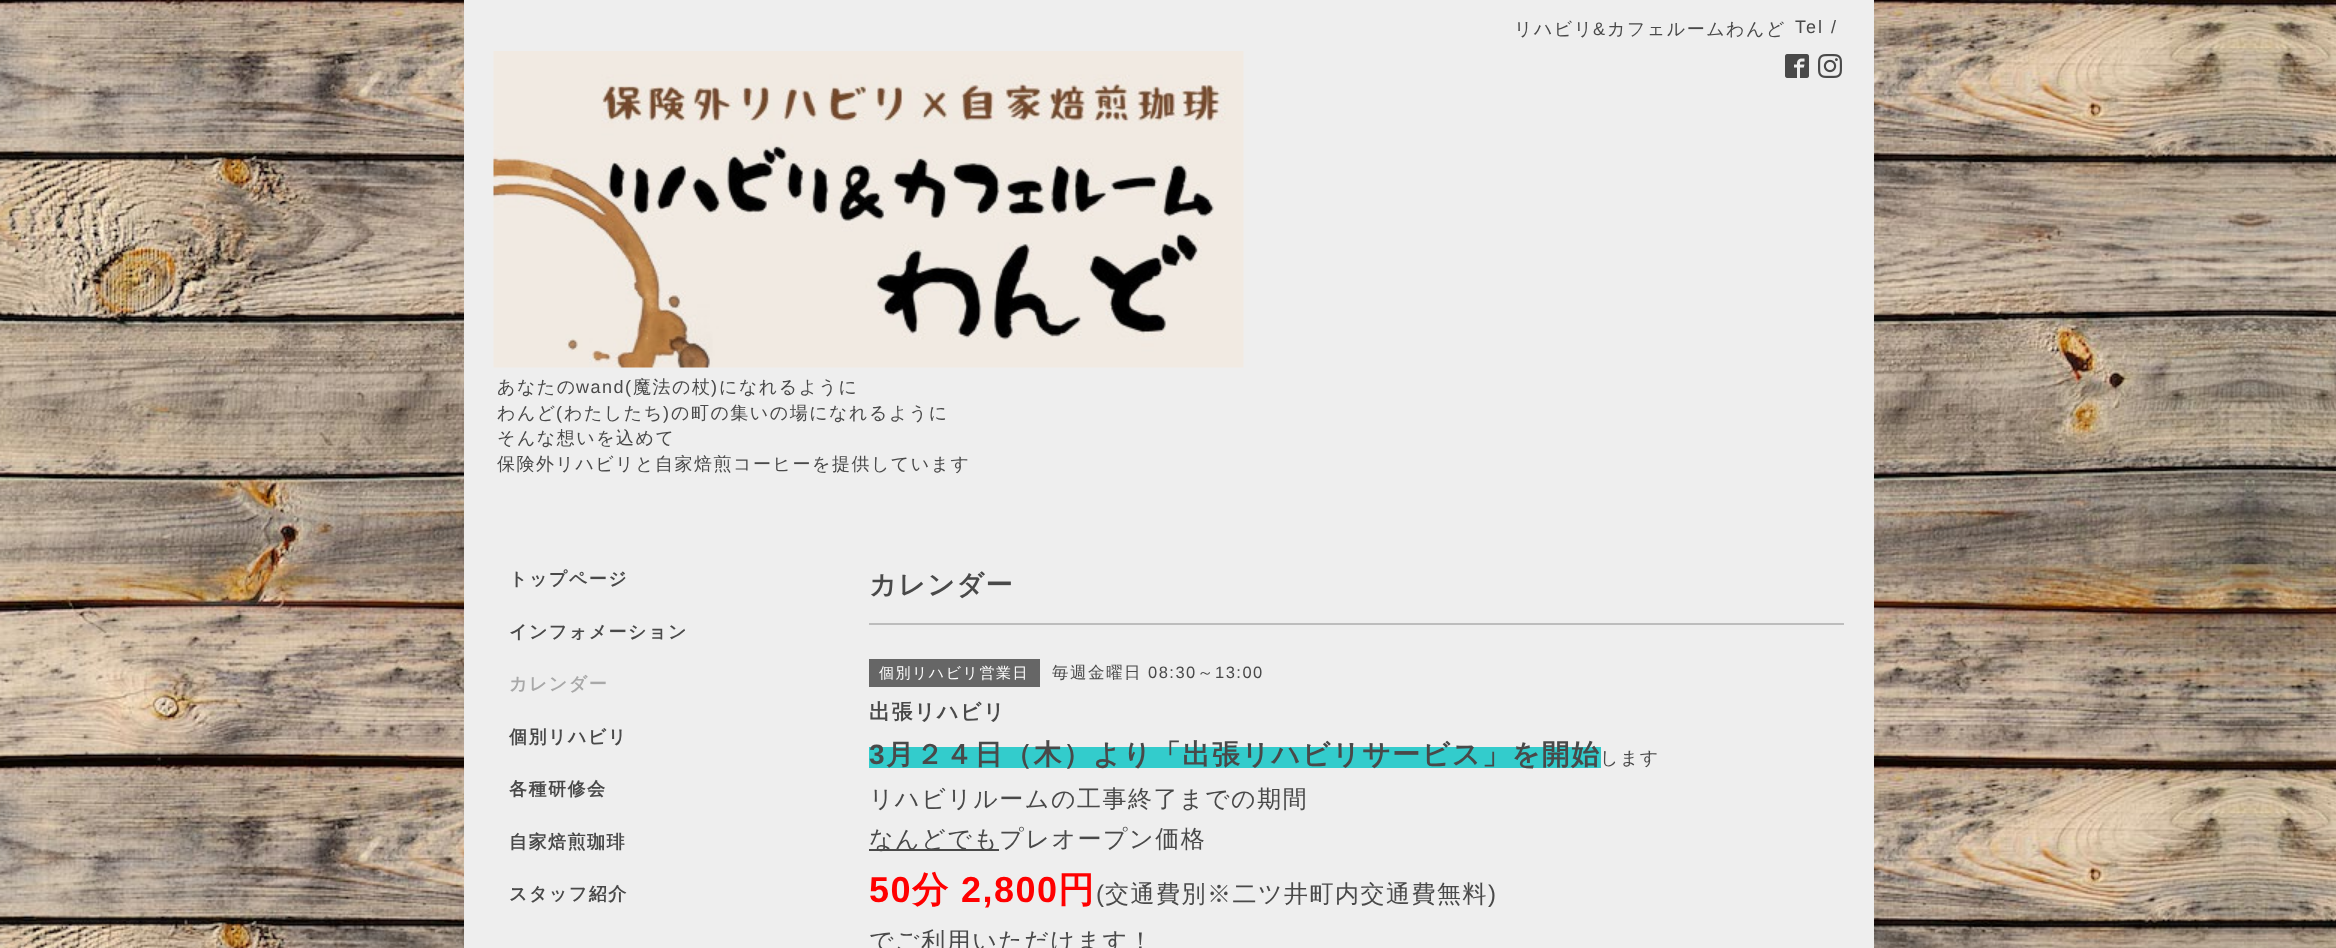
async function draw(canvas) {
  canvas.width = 2336
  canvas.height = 948
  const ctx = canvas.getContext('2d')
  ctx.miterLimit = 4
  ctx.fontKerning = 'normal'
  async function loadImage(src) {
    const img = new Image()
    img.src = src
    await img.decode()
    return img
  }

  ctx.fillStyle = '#fff'
  ctx.fillRect(0, 0, 2336, 948)
  ctx.drawImage(await loadImage('image0.png'), 0, 0, 2336, 948)
  ctx.fillStyle = '#eee'
  ctx.fillRect(464, 0, 1410, 948)
  ctx.letterSpacing = '1.5px'
  ctx.font = '500 18px WenQuanYi Zen Hei'
  ctx.fillStyle = '#494949'
  ctx.fillText('リハビリ', 1514, 35)
  ctx.font = '18px Liberation Sans'
  ctx.fillText('&', 1593, 35)
  ctx.font = '500 18px WenQuanYi Zen Hei'
  ctx.fillText('カフェルームわんど', 1607, 35)
  ctx.letterSpacing = '2px'
  ctx.font = '18px Liberation Sans'
  ctx.fillText('Tel /', 1795, 33)
  ctx.drawImage(await loadImage('image1.png'), 1785, 54, 24, 24)
  ctx.drawImage(await loadImage('image2.png'), 1818, 54, 24, 24)
  ctx.drawImage(await loadImage('image3.png'), 493, 51, 751, 317)
  ctx.letterSpacing = '1.5px'
  ctx.font = '500 18px WenQuanYi Zen Hei'
  ctx.fillText('あなたの', 497, 393)
  ctx.font = '18px Liberation Sans'
  ctx.fillText('wand(', 576, 393)
  ctx.font = '500 18px WenQuanYi Zen Hei'
  ctx.fillText('魔法の杖', 633, 393)
  ctx.font = '18px Liberation Sans'
  ctx.fillText(')', 711, 393)
  ctx.font = '500 18px WenQuanYi Zen Hei'
  ctx.fillText('になれるように', 719, 393)
  ctx.fillText('わんど', 497, 419)
  ctx.font = '18px Liberation Sans'
  ctx.fillText('(', 556, 419)
  ctx.font = '500 18px WenQuanYi Zen Hei'
  ctx.fillText('わたしたち', 564, 419)
  ctx.font = '18px Liberation Sans'
  ctx.fillText(')', 663, 419)
  ctx.font = '500 18px WenQuanYi Zen Hei'
  ctx.fillText('の町の集いの場になれるように', 671, 419)
  ctx.fillText('そんな想いを込めて', 497, 444)
  ctx.fillText('保険外リハビリと自家焙煎コーヒーを提供しています', 497, 470)
  ctx.font = 'bold 18px WenQuanYi Zen Hei'
  ctx.fillText('トップページ', 509, 585)
  ctx.fillText('インフォメーション', 509, 638)
  ctx.fillStyle = '#a8a8a8'
  ctx.fillText('カレンダー', 509, 690)
  ctx.fillStyle = '#494949'
  ctx.fillText('個別リハビリ', 509, 743)
  ctx.fillText('各種研修会', 509, 795)
  ctx.fillText('自家焙煎珈琲', 509, 848)
  ctx.fillText('スタッフ紹介', 509, 900)
  ctx.font = 'bold 27px WenQuanYi Zen Hei'
  ctx.fillText('カレンダー', 869, 594)
  ctx.fillStyle = '#bdbdbd'
  ctx.fillRect(869, 623, 975, 2)
  ctx.fillStyle = '#666'
  ctx.fillRect(869, 659, 171, 28)
  ctx.font = '500 15px WenQuanYi Zen Hei'
  ctx.fillStyle = '#fff'
  ctx.fillText('個別リハビリ営業日', 879, 678)
  ctx.font = '500 16.5px WenQuanYi Zen Hei'
  ctx.fillStyle = '#494949'
  ctx.fillText('毎週金曜日', 1052, 678)
  ctx.font = '16.5px Liberation Sans'
  ctx.fillText('08:30', 1148, 678)
  ctx.font = '500 16.5px WenQuanYi Zen Hei'
  ctx.fillText('～', 1197, 678)
  ctx.font = '16.5px Liberation Sans'
  ctx.fillText('13:00', 1215, 678)
  ctx.font = 'bold 21px WenQuanYi Zen Hei'
  ctx.fillText('出張リハビリ', 869, 719)
  ctx.fillStyle = '#3cc'
  ctx.fillRect(869, 747, 732, 21)
  ctx.font = 'bold 28px Liberation Sans'
  ctx.fillStyle = '#494949'
  ctx.fillText('3', 869, 764)
  ctx.font = 'bold 28px WenQuanYi Zen Hei'
  ctx.fillText('月２４日（木）より「出張リハビリサービス」を開始', 886, 764)
  ctx.font = '500 18px WenQuanYi Zen Hei'
  ctx.fillText('します', 1600, 764)
  ctx.font = '500 24px WenQuanYi Zen Hei'
  ctx.fillText('リハビリルームの工事終了までの期間', 869, 807)
  ctx.fillRect(869, 849, 130, 2)
  ctx.fillText('なんどでもプレオープン価格', 869, 847)
  ctx.font = 'bold 36px Liberation Sans'
  ctx.fillStyle = '#f00'
  ctx.fillText('50', 869, 902)
  ctx.font = 'bold 36px WenQuanYi Zen Hei'
  ctx.fillText('分', 912, 902)
  ctx.font = 'bold 36px Liberation Sans'
  ctx.fillText('2,800', 961, 902)
  ctx.font = 'bold 36px WenQuanYi Zen Hei'
  ctx.fillText('円', 1058, 902)
  ctx.font = '24px Liberation Sans'
  ctx.fillStyle = '#494949'
  ctx.fillText('(', 1096, 902)
  ctx.font = '500 24px WenQuanYi Zen Hei'
  ctx.fillText('交通費別※二ツ井町内交通費無料', 1105, 902)
  ctx.font = '24px Liberation Sans'
  ctx.fillText(')', 1488, 902)
  ctx.font = '500 24px WenQuanYi Zen Hei'
  ctx.fillText('でご利用いただけます！', 869, 949)
}

draw(document.querySelector('canvas'))
